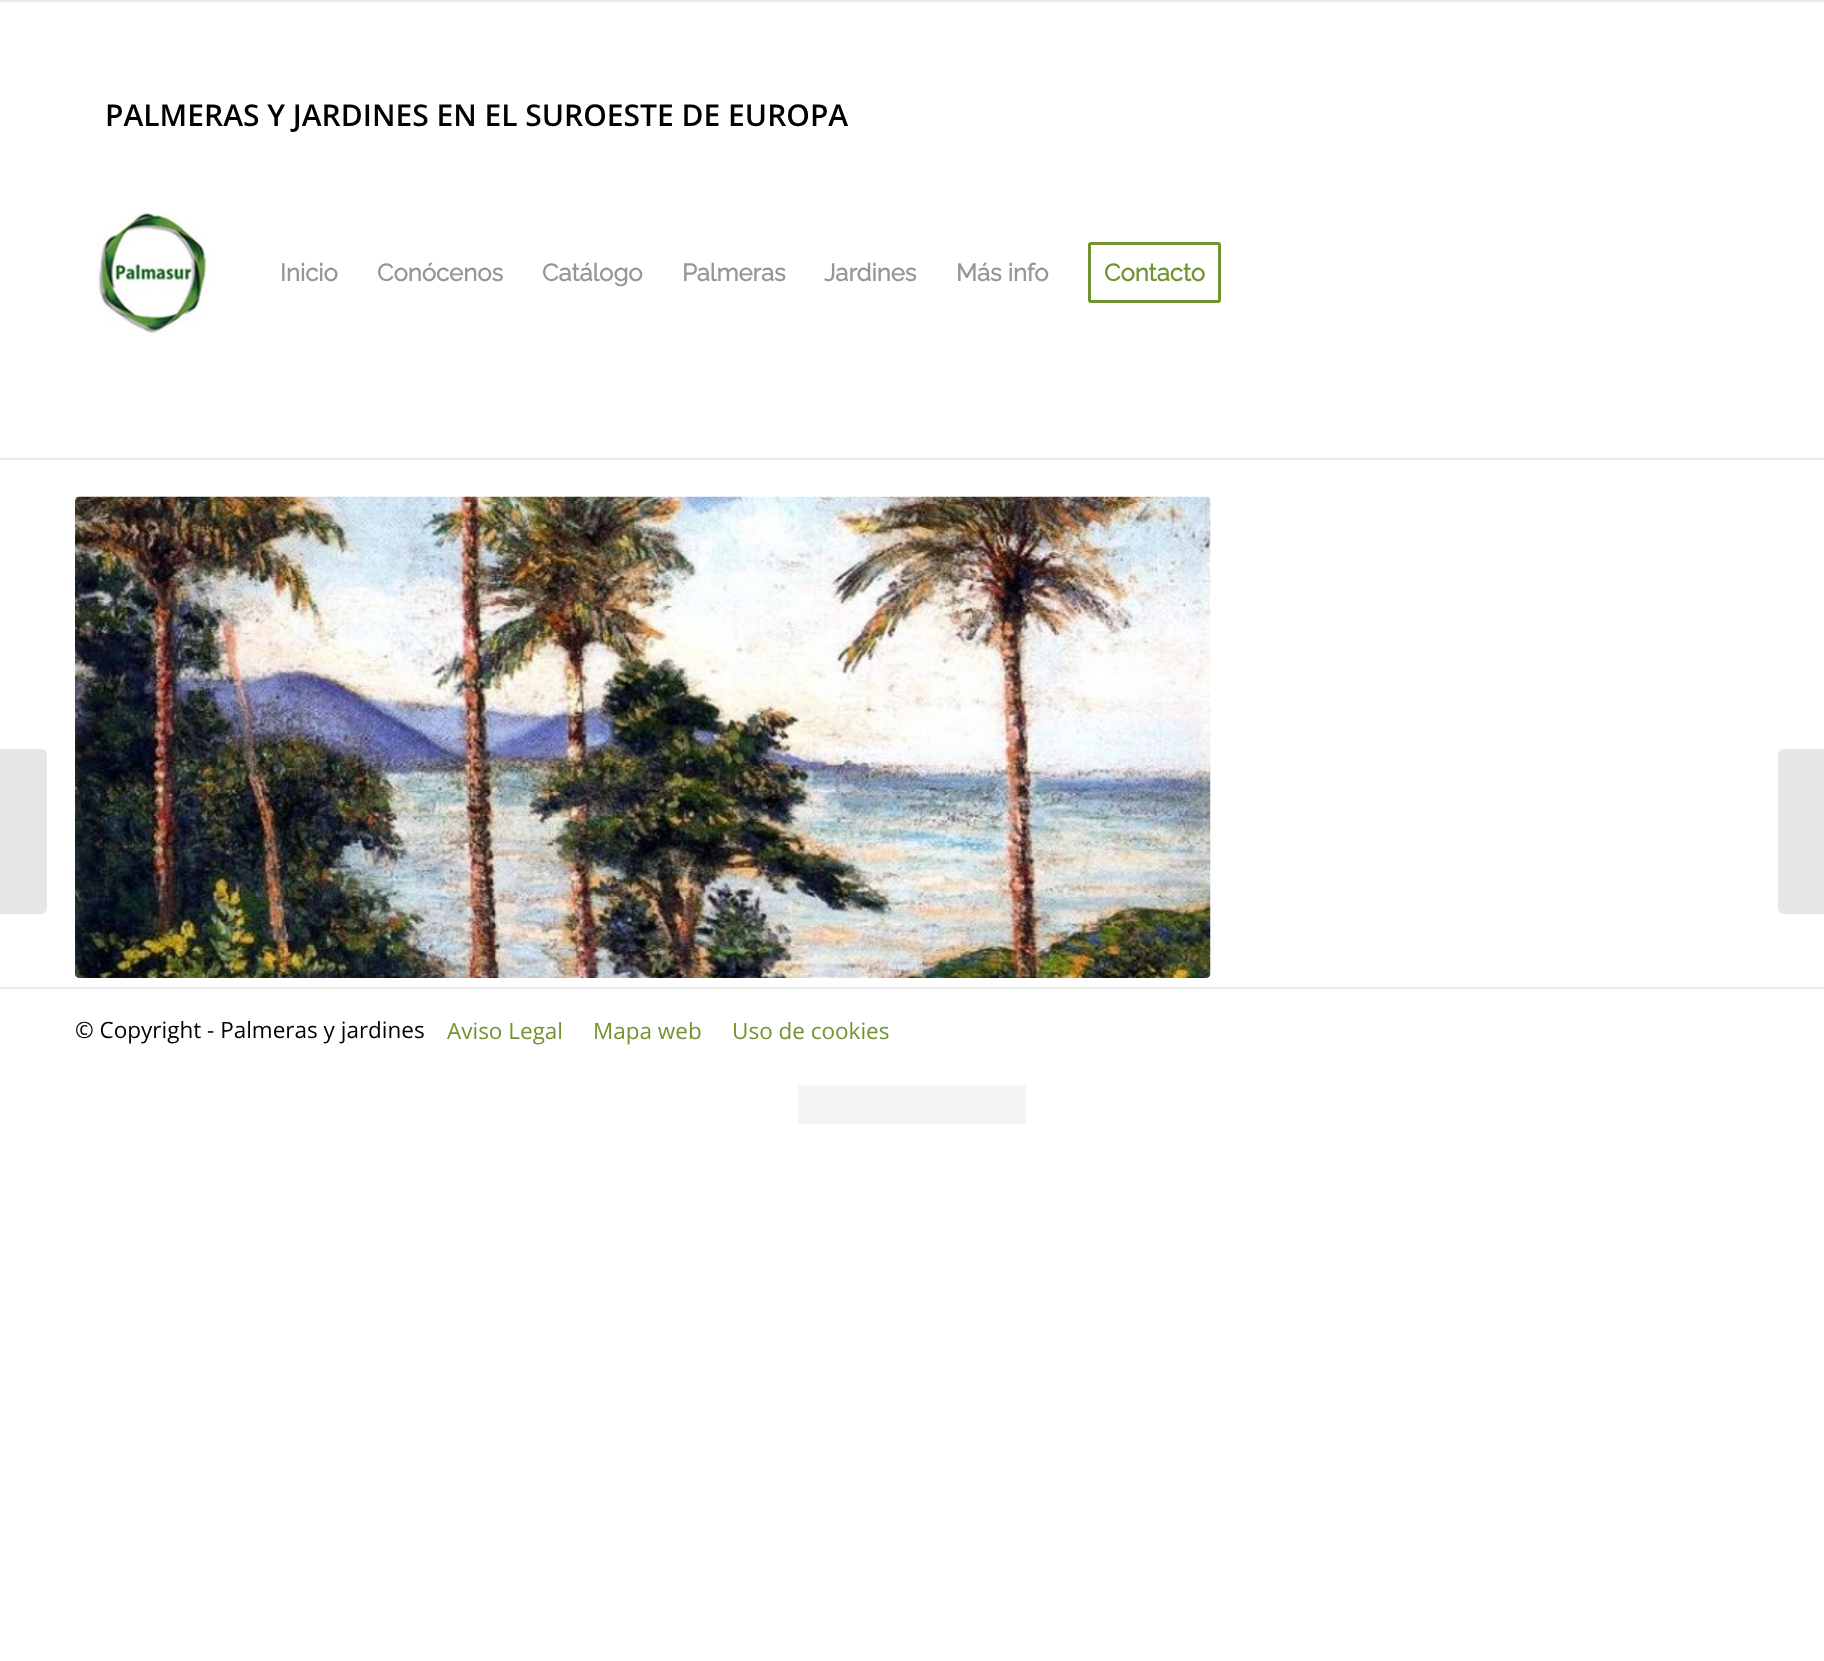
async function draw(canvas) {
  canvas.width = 1824
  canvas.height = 1661
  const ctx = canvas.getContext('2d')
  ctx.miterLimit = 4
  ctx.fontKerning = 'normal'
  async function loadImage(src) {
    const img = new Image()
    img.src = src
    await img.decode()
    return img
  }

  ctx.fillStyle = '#fff'
  ctx.fillRect(0, 0, 1824, 1661)
  ctx.fillStyle = '#ebebeb'
  ctx.fillRect(0, 0, 1824, 2)
  ctx.font = '600 30px Open Sans'
  ctx.fillStyle = '#000'
  ctx.fillText('PALMERAS Y JARDINES EN EL SUROESTE DE EUROPA', 105, 126)
  ctx.drawImage(await loadImage('image0.png'), 97, 207, 119, 128)
  ctx.font = 'bold 24px Raleway'
  ctx.fillStyle = '#969696'
  ctx.fillText('Inicio', 280, 281)
  ctx.fillText('Conócenos', 377, 281)
  ctx.fillText('Catálogo', 542, 281)
  ctx.fillText('Palmeras', 682, 281)
  ctx.fillText('Jardines', 824, 281)
  ctx.fillText('Más info', 956, 281)
  ctx.beginPath()
  ctx.roundRect(1089.5, 243.5, 130, 58, 1.5)
  ctx.strokeStyle = '#719430'
  ctx.lineWidth = 3
  ctx.stroke()
  ctx.fillStyle = '#719430'
  ctx.fillText('Contacto', 1104, 281)
  ctx.fillStyle = '#e6e6e6'
  ctx.beginPath()
  ctx.roundRect(0, 749, 47, 165, [0, 6, 6, 0])
  ctx.fill()
  ctx.beginPath()
  ctx.roundRect(1778, 749, 46, 165, [6, 0, 0, 6])
  ctx.fill()
  ctx.fillStyle = '#ebebeb'
  ctx.fillRect(0, 458, 1824, 2)
  ctx.drawImage(await loadImage('image1.png'), 75, 496, 1136, 482)
  ctx.fillRect(0, 987, 1824, 2)
  ctx.font = '22.5px Open Sans'
  ctx.fillStyle = '#000'
  ctx.fillText('© Copyright - Palmeras y jardines', 75, 1038)
  ctx.fillStyle = '#719430'
  ctx.fillText('Aviso Legal', 447, 1039)
  ctx.fillText('Mapa web', 593, 1039)
  ctx.fillText('Uso de cookies', 732, 1039)
  ctx.fillStyle = '#f5f5f5'
  ctx.fillRect(798, 1085, 228, 39)
}

draw(document.querySelector('canvas'))
